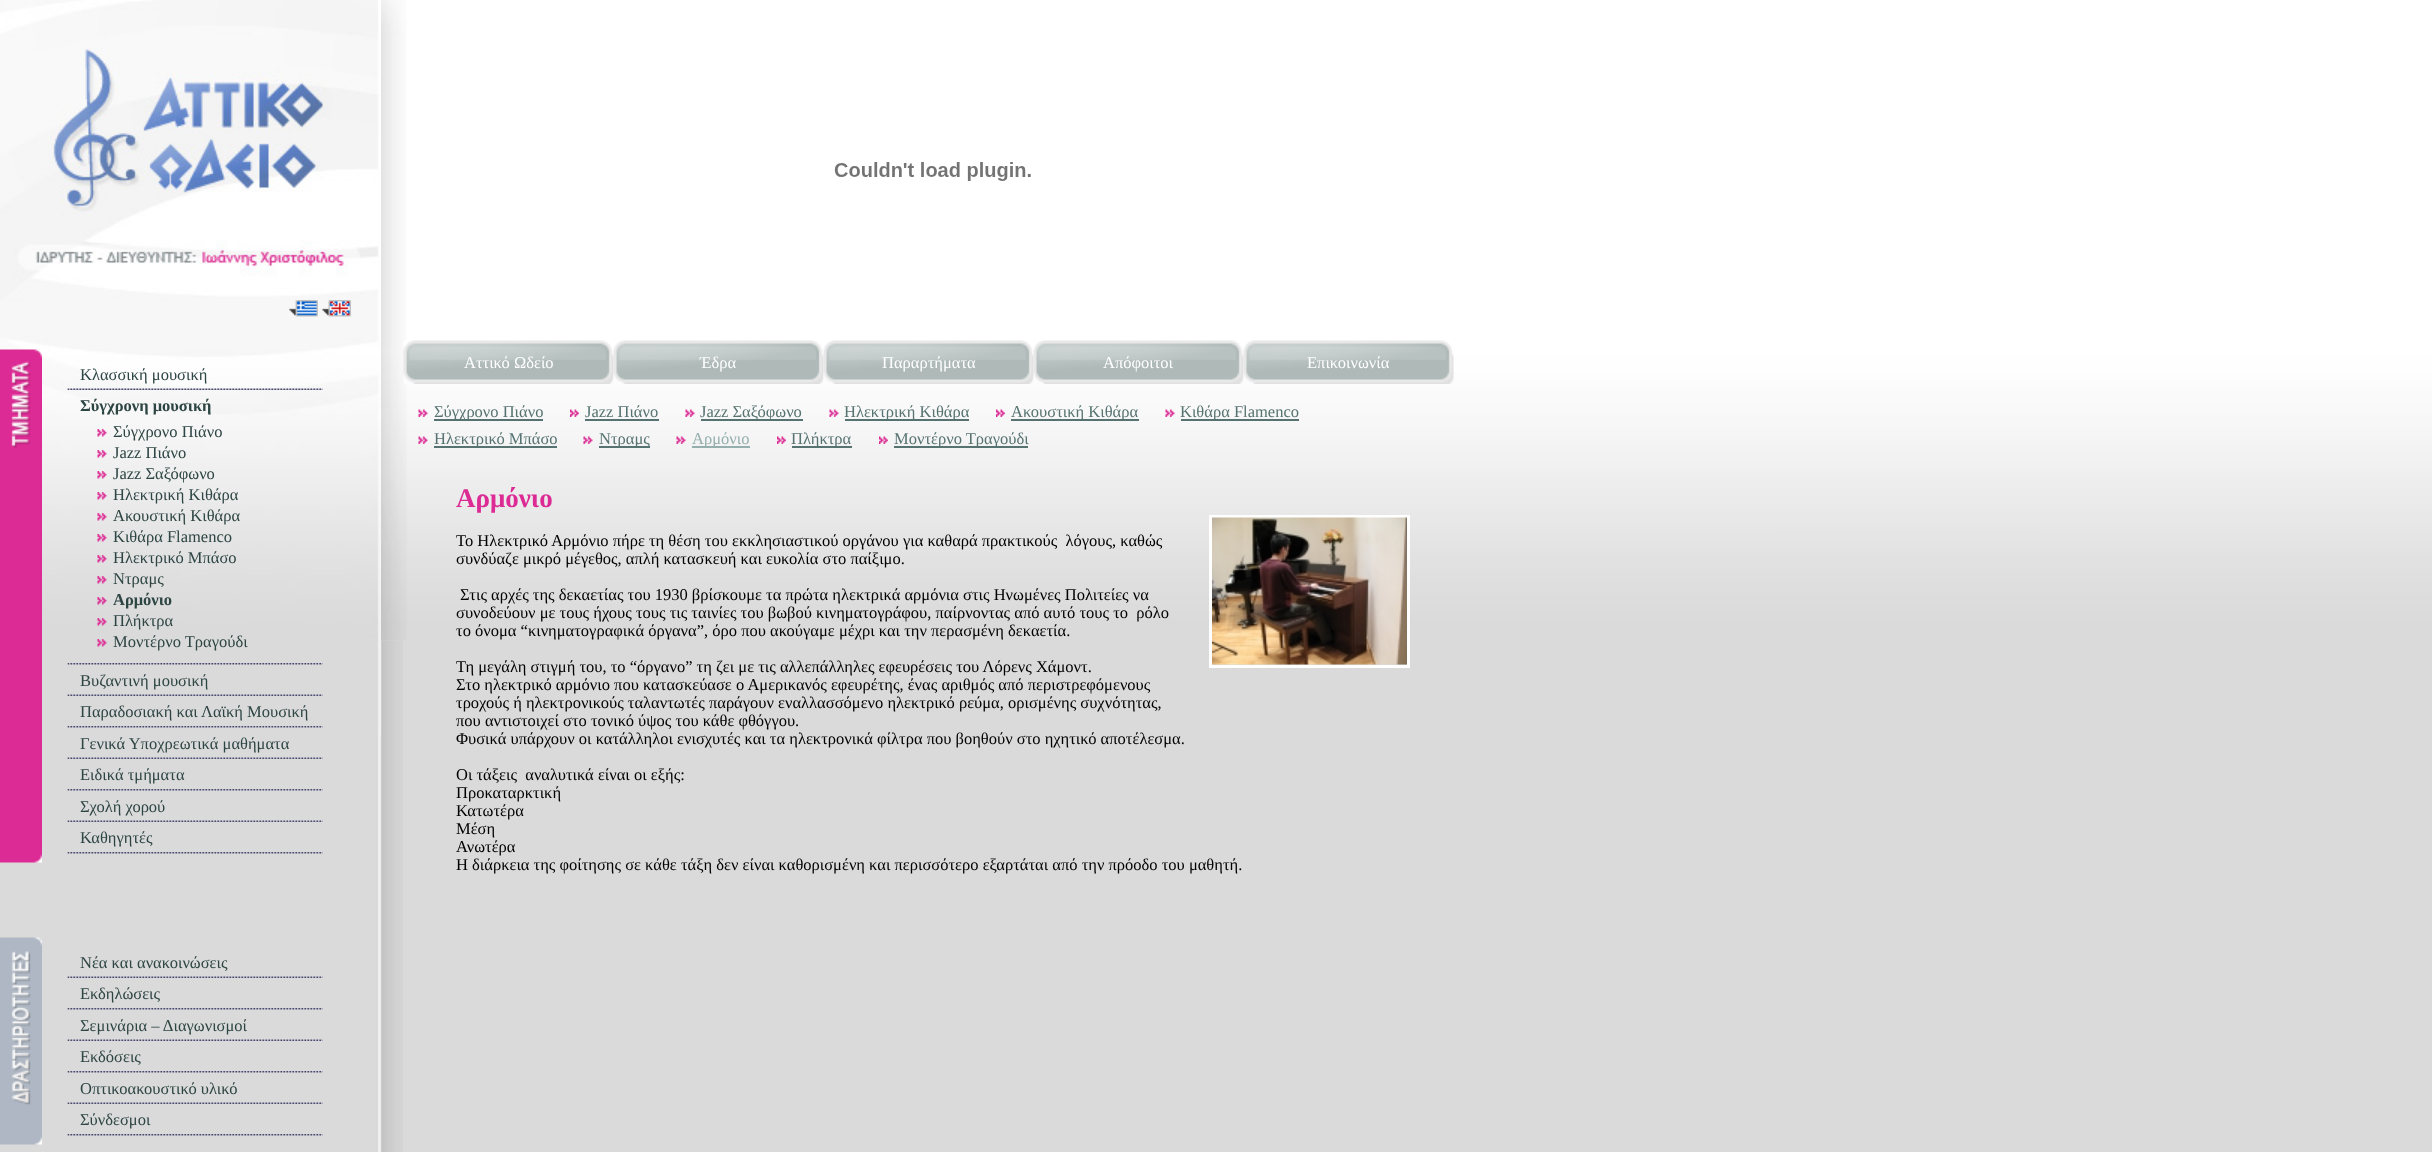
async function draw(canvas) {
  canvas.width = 2432
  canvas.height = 1152
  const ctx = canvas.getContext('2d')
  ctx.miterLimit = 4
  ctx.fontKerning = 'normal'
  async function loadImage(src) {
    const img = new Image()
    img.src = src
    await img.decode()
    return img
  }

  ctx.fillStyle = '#dadada'
  ctx.fillRect(0, 0, 2432, 1152)
  ctx.drawImage(await loadImage('image0.png'), 378, 640, 25, 512)
  ctx.drawImage(await loadImage('image1.png'), 381, 0, 2051, 641)
  ctx.drawImage(await loadImage('image2.png'), 0, 0, 381, 735)
  ctx.drawImage(await loadImage('image3.png'), 289, 300, 29, 17)
  ctx.drawImage(await loadImage('image4.png'), 322, 300, 29, 17)
  ctx.drawImage(await loadImage('image5.png'), 0, 349, 42, 11)
  ctx.drawImage(await loadImage('image6.png'), 0, 360, 42, 503)
  ctx.drawImage(await loadImage('image7.png'), 11, 361, 20, 87)
  ctx.drawImage(await loadImage('image8.png'), 67, 388, 256, 2)
  ctx.font = '16.5px Liberation Serif'
  ctx.fillStyle = '#2d4543'
  ctx.fillText('Κλασσική μουσική', 80, 380)
  ctx.drawImage(await loadImage('image9.png'), 67, 663, 256, 2)
  ctx.font = 'bold 16.5px Liberation Serif'
  ctx.fillText('Σύγχρονη μουσική', 80, 411)
  ctx.drawImage(await loadImage('image10.png'), 97, 429, 10, 8)
  ctx.font = '16.5px Liberation Serif'
  ctx.fillText('Σύγχρονο Πιάνο', 113, 437)
  ctx.drawImage(await loadImage('image11.png'), 97, 450, 10, 8)
  ctx.fillText('Jazz Πιάνο', 113, 458)
  ctx.drawImage(await loadImage('image12.png'), 97, 471, 10, 8)
  ctx.fillText('Jazz Σαξόφωνο', 113, 479)
  ctx.drawImage(await loadImage('image13.png'), 97, 492, 10, 8)
  ctx.fillText('Ηλεκτρική Κιθάρα', 113, 500)
  ctx.drawImage(await loadImage('image14.png'), 97, 513, 10, 8)
  ctx.fillText('Ακουστική Κιθάρα', 113, 521)
  ctx.drawImage(await loadImage('image15.png'), 97, 534, 10, 8)
  ctx.fillText('Κιθάρα Flamenco', 113, 542)
  ctx.drawImage(await loadImage('image16.png'), 97, 555, 10, 8)
  ctx.fillText('Ηλεκτρικό Μπάσο', 113, 563)
  ctx.drawImage(await loadImage('image17.png'), 97, 576, 10, 8)
  ctx.fillText('Ντραμς', 113, 584)
  ctx.drawImage(await loadImage('image18.png'), 97, 597, 10, 8)
  ctx.font = 'bold 16.5px Liberation Serif'
  ctx.fillText('Αρμόνιο', 113, 605)
  ctx.drawImage(await loadImage('image19.png'), 97, 618, 10, 8)
  ctx.font = '16.5px Liberation Serif'
  ctx.fillText('Πλήκτρα', 113, 626)
  ctx.drawImage(await loadImage('image20.png'), 97, 639, 10, 8)
  ctx.fillText('Μοντέρνο Τραγούδι', 113, 647)
  ctx.drawImage(await loadImage('image21.png'), 67, 694, 256, 2)
  ctx.fillText('Βυζαντινή μουσική', 80, 686)
  ctx.drawImage(await loadImage('image9.png'), 67, 726, 256, 2)
  ctx.fillText('Παραδοσιακή και Λαϊκή Μουσική', 80, 717)
  ctx.drawImage(await loadImage('image21.png'), 67, 757, 256, 2)
  ctx.fillText('Γενικά Υποχρεωτικά μαθήματα', 80, 749)
  ctx.drawImage(await loadImage('image9.png'), 67, 789, 256, 2)
  ctx.fillText('Ειδικά τμήματα', 80, 780)
  ctx.drawImage(await loadImage('image21.png'), 67, 820, 256, 2)
  ctx.fillText('Σχολή χορού', 80, 812)
  ctx.drawImage(await loadImage('image9.png'), 67, 852, 256, 2)
  ctx.fillText('Καθηγητές', 80, 843)
  ctx.drawImage(await loadImage('image22.png'), 0, 937, 42, 11)
  ctx.drawImage(await loadImage('image23.png'), 0, 948, 42, 197)
  ctx.drawImage(await loadImage('image24.png'), 11, 951, 20, 154)
  ctx.drawImage(await loadImage('image21.png'), 67, 976, 256, 2)
  ctx.fillText('Νέα και ανακοινώσεις', 80, 968)
  ctx.drawImage(await loadImage('image9.png'), 67, 1008, 256, 2)
  ctx.fillText('Εκδηλώσεις', 80, 999)
  ctx.drawImage(await loadImage('image21.png'), 67, 1039, 256, 2)
  ctx.fillText('Σεμινάρια – Διαγωνισμοί', 80, 1031)
  ctx.drawImage(await loadImage('image9.png'), 67, 1071, 256, 2)
  ctx.fillText('Εκδόσεις', 80, 1062)
  ctx.drawImage(await loadImage('image21.png'), 67, 1102, 256, 2)
  ctx.fillText('Οπτικοακουστικό υλικό', 80, 1094)
  ctx.drawImage(await loadImage('image9.png'), 67, 1134, 256, 2)
  ctx.fillText('Σύνδεσμοι', 80, 1125)
  ctx.drawImage(await loadImage('image25.png'), 381, 0, 26, 641)
  ctx.drawImage(await loadImage('image26.png'), 834, 162, 197, 19)
  ctx.drawImage(await loadImage('image27.png'), 403, 340, 211, 44)
  ctx.fillStyle = '#fff'
  ctx.fillText('Αττικό Ωδείο', 464, 368)
  ctx.drawImage(await loadImage('image28.png'), 613, 340, 211, 44)
  ctx.fillText('Έδρα', 700, 368)
  ctx.drawImage(await loadImage('image29.png'), 823, 340, 211, 44)
  ctx.fillText('Παραρτήματα', 882, 368)
  ctx.drawImage(await loadImage('image29.png'), 1033, 340, 211, 44)
  ctx.fillText('Απόφοιτοι', 1103, 368)
  ctx.drawImage(await loadImage('image29.png'), 1243, 340, 211, 44)
  ctx.fillText('Επικοινωνία', 1307, 368)
  ctx.drawImage(await loadImage('image30.png'), 418, 409, 10, 8)
  ctx.fillStyle = '#567371'
  ctx.fillRect(434, 419, 109, 2)
  ctx.fillText('Σύγχρονο Πιάνο', 434, 417)
  ctx.drawImage(await loadImage('image31.png'), 570, 409, 9, 8)
  ctx.fillText('Jazz Πιάνο', 585, 417)
  ctx.fillRect(585, 419, 74, 2)
  ctx.drawImage(await loadImage('image30.png'), 685, 409, 10, 8)
  ctx.fillRect(701, 419, 102, 2)
  ctx.fillText('Jazz Σαξόφωνο', 700, 417)
  ctx.drawImage(await loadImage('image32.png'), 829, 409, 10, 8)
  ctx.fillRect(845, 419, 124, 2)
  ctx.fillText('Ηλεκτρική Κιθάρα', 844, 417)
  ctx.drawImage(await loadImage('image33.png'), 996, 409, 9, 8)
  ctx.fillRect(1011, 419, 128, 2)
  ctx.fillText('Ακουστική Κιθάρα', 1011, 417)
  ctx.drawImage(await loadImage('image30.png'), 1165, 409, 10, 8)
  ctx.fillRect(1181, 419, 118, 2)
  ctx.fillText('Κιθάρα Flamenco', 1180, 417)
  ctx.drawImage(await loadImage('image34.png'), 418, 436, 10, 8)
  ctx.fillRect(434, 446, 123, 2)
  ctx.fillText('Ηλεκτρικό Μπάσο', 434, 444)
  ctx.drawImage(await loadImage('image34.png'), 583, 436, 10, 8)
  ctx.fillRect(599, 446, 51, 2)
  ctx.fillText('Ντραμς', 599, 444)
  ctx.drawImage(await loadImage('image34.png'), 676, 436, 10, 8)
  ctx.fillStyle = '#94afad'
  ctx.fillRect(692, 446, 58, 2)
  ctx.fillText('Αρμόνιο', 692, 444)
  ctx.drawImage(await loadImage('image35.png'), 777, 436, 9, 8)
  ctx.fillStyle = '#567371'
  ctx.fillRect(792, 446, 60, 2)
  ctx.fillText('Πλήκτρα', 791, 444)
  ctx.drawImage(await loadImage('image35.png'), 879, 436, 9, 8)
  ctx.fillRect(894, 446, 134, 2)
  ctx.fillText('Μοντέρνο Τραγούδι', 894, 444)
  ctx.font = 'bold 27px Liberation Serif'
  ctx.fillStyle = '#dc2b94'
  ctx.fillText('Αρμόνιο', 456, 507)
  ctx.font = '16.5px Liberation Serif'
  ctx.fillStyle = '#000'
  ctx.fillText('Το Ηλεκτρικό Αρμόνιο πήρε τη θέση του εκκλησιαστικού οργάνου για καθαρά πρακτικούς  λόγους, καθώς', 456, 546)
  ctx.fillText('συνδύαζε μικρό μέγεθος, απλή κατασκευή και ευκολία στο παίξιμο.', 456, 564)
  ctx.fillText('Στις αρχές της δεκαετίας του 1930 βρίσκουμε τα πρώτα ηλεκτρικά αρμόνια στις Ηνωμένες Πολιτείες να', 460, 600)
  ctx.fillText('συνοδεύουν με τους ήχους τους τις ταινίες του βωβού κινηματογράφου, παίρνοντας από αυτό τους το  ρόλο', 456, 618)
  ctx.fillText('το όνομα “κινηματογραφικά όργανα”, όρο που ακούγαμε μέχρι και την περασμένη δεκαετία.', 456, 636)
  ctx.fillText('Τη μεγάλη στιγμή του, το “όργανο” τη ζει με τις αλλεπάλληλες εφευρέσεις του Λόρενς Χάμοντ.', 456, 672)
  ctx.fillText('Στο ηλεκτρικό αρμόνιο που κατασκεύασε ο Αμερικανός εφευρέτης, ένας αριθμός από περιστρεφόμενους', 456, 690)
  ctx.fillText('τροχούς ή ηλεκτρονικούς ταλαντωτές παράγουν εναλλασσόμενο ηλεκτρικό ρεύμα, ορισμένης συχνότητας,', 456, 708)
  ctx.fillText('που αντιστοιχεί στο τονικό ύψος του κάθε φθόγγου.', 456, 726)
  ctx.fillText('Φυσικά υπάρχουν οι κατάλληλοι ενισχυτές και τα ηλεκτρονικά φίλτρα που βοηθούν στο ηχητικό αποτέλεσμα.', 456, 744)
  ctx.fillText('Οι τάξεις  αναλυτικά είναι οι εξής:', 456, 780)
  ctx.fillText('Προκαταρκτική', 456, 798)
  ctx.fillText('Κατωτέρα', 456, 816)
  ctx.fillText('Μέση', 456, 834)
  ctx.fillText('Ανωτέρα', 456, 852)
  ctx.fillText('Η διάρκεια της φοίτησης σε κάθε τάξη δεν είναι καθορισμένη και περισσότερο εξαρτάται από την πρόοδο του μαθητή.', 456, 870)
  ctx.strokeStyle = '#fff'
  ctx.lineWidth = 3
  ctx.strokeRect(1210.5, 516.5, 198, 150)
  ctx.drawImage(await loadImage('image36.png'), 1212, 517, 195, 148)
}

draw(document.querySelector('canvas'))
